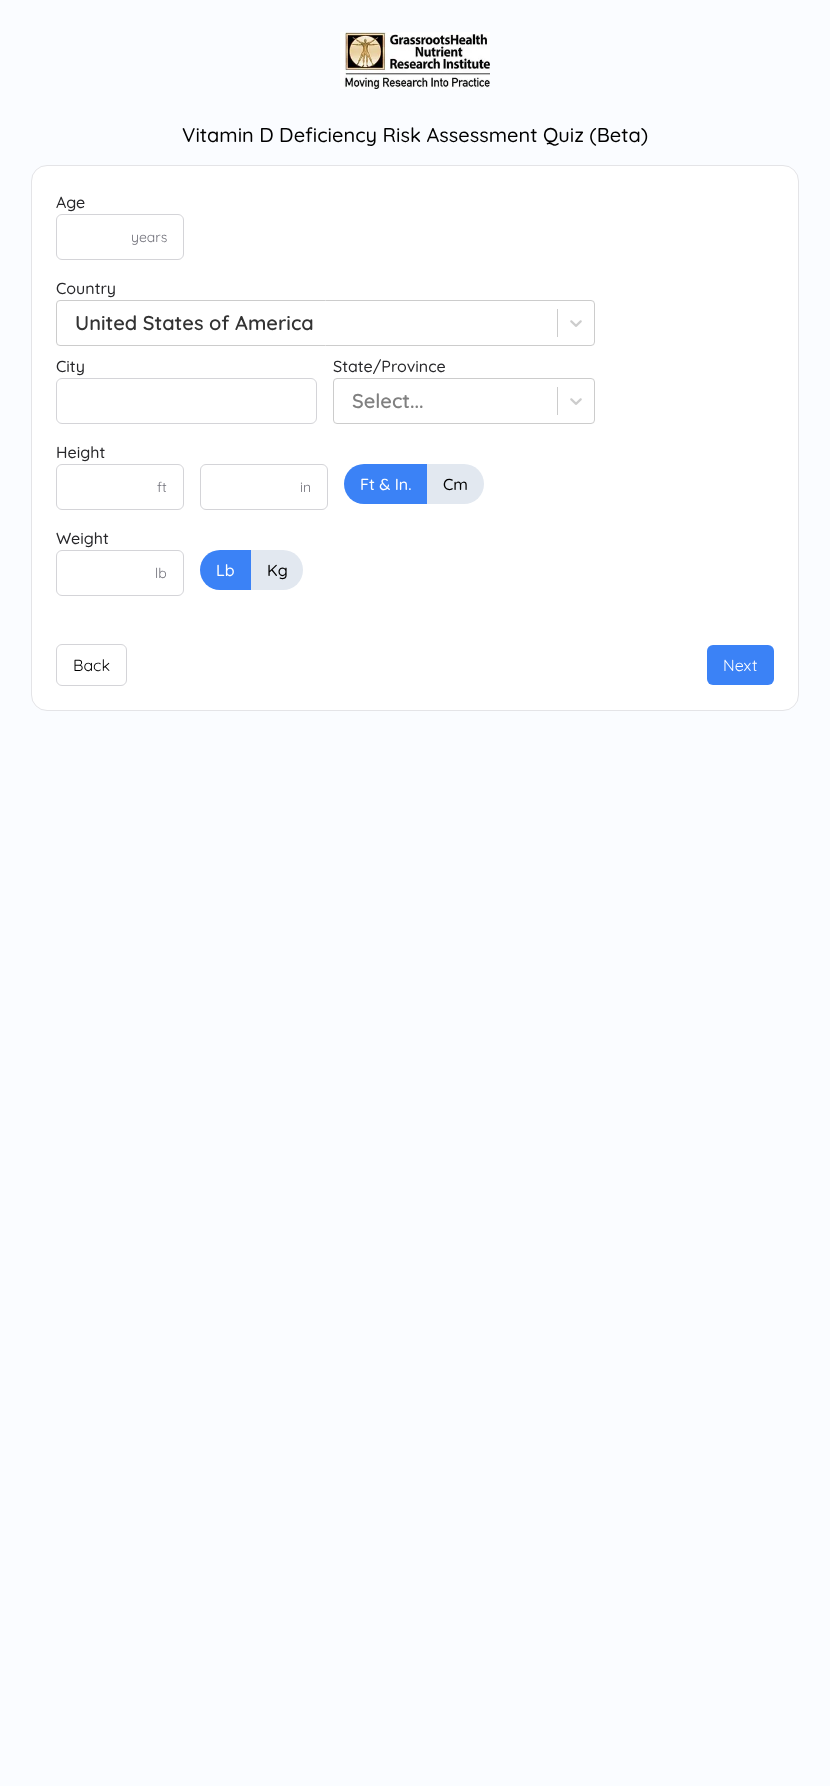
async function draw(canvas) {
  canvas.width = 830
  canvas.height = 1786
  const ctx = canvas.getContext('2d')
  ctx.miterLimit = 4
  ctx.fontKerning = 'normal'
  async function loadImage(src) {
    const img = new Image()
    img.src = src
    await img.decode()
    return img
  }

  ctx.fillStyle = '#fafcff'
  ctx.fillRect(0, 0, 830, 1786)
  ctx.drawImage(await loadImage('image0.png'), 340, 32, 150, 57)
  ctx.font = '500 20px Quicksand'
  ctx.fillStyle = '#000'
  ctx.fillText('Vitamin D Deficiency Risk Assessment Quiz (Beta)', 182, 142)
  ctx.fillStyle = '#fff'
  ctx.beginPath()
  ctx.roundRect(31.5, 165.5, 767, 545, 15.5)
  ctx.fill()
  ctx.strokeStyle = '#e4e4e7'
  ctx.stroke()
  ctx.font = '500 16px Quicksand'
  ctx.fillStyle = '#27272a'
  ctx.fillText('Age', 56, 208)
  ctx.beginPath()
  ctx.roundRect(56.5, 214.5, 127, 45, 5.5)
  ctx.strokeStyle = '#d4d4d8'
  ctx.stroke()
  ctx.font = '14px Quicksand'
  ctx.fillStyle = '#71717a'
  ctx.fillText('years', 131, 242)
  ctx.font = '500 16px Quicksand'
  ctx.fillStyle = '#27272a'
  ctx.fillText('Country', 56, 294)
  ctx.beginPath()
  ctx.roundRect(56.5, 300.5, 538, 45, 3.5)
  ctx.strokeStyle = '#ccc'
  ctx.stroke()
  ctx.font = '600 20px Quicksand'
  ctx.fillStyle = '#333'
  ctx.fillText('United States of America', 75, 330)
  ctx.fillStyle = '#ccc'
  ctx.fillRect(557, 309, 1, 28)
  ctx.drawImage(await loadImage('image1.png'), 570, 320, 12, 7)
  ctx.font = '500 16px Quicksand'
  ctx.fillStyle = '#27272a'
  ctx.fillText('City', 56, 372)
  ctx.beginPath()
  ctx.roundRect(56.5, 378.5, 260, 45, 5.5)
  ctx.strokeStyle = '#d4d4d8'
  ctx.stroke()
  ctx.fillText('State/Province', 333, 372)
  ctx.beginPath()
  ctx.roundRect(333.5, 378.5, 261, 45, 3.5)
  ctx.strokeStyle = '#ccc'
  ctx.stroke()
  ctx.font = '600 20px Quicksand'
  ctx.fillStyle = '#808080'
  ctx.fillText('Select...', 352, 408)
  ctx.fillStyle = '#ccc'
  ctx.fillRect(557, 387, 1, 28)
  ctx.drawImage(await loadImage('image1.png'), 570, 398, 12, 7)
  ctx.font = '500 16px Quicksand'
  ctx.fillStyle = '#27272a'
  ctx.fillText('Height', 56, 458)
  ctx.beginPath()
  ctx.roundRect(56.5, 464.5, 127, 45, 5.5)
  ctx.strokeStyle = '#d4d4d8'
  ctx.stroke()
  ctx.font = '14px Quicksand'
  ctx.fillStyle = '#71717a'
  ctx.fillText('ft', 157, 492)
  ctx.beginPath()
  ctx.roundRect(200.5, 464.5, 127, 45, 5.5)
  ctx.stroke()
  ctx.fillText('in', 300, 492)
  ctx.fillStyle = '#3b82f6'
  ctx.beginPath()
  ctx.roundRect(344, 464, 83, 40, [20, 0, 0, 20])
  ctx.fill()
  ctx.font = '500 16px Quicksand'
  ctx.fillStyle = '#fff'
  ctx.fillText('Ft & In.', 360, 490)
  ctx.fillStyle = '#e2e8f0'
  ctx.beginPath()
  ctx.roundRect(427, 464, 57, 40, [0, 20, 20, 0])
  ctx.fill()
  ctx.fillStyle = '#000'
  ctx.fillText('Cm', 443, 490)
  ctx.fillStyle = '#27272a'
  ctx.fillText('Weight', 56, 544)
  ctx.beginPath()
  ctx.roundRect(56.5, 550.5, 127, 45, 5.5)
  ctx.stroke()
  ctx.font = '14px Quicksand'
  ctx.fillStyle = '#71717a'
  ctx.fillText('lb', 155, 578)
  ctx.fillStyle = '#3b82f6'
  ctx.beginPath()
  ctx.roundRect(200, 550, 51, 40, [20, 0, 0, 20])
  ctx.fill()
  ctx.font = '500 16px Quicksand'
  ctx.fillStyle = '#fff'
  ctx.fillText('Lb', 216, 576)
  ctx.fillStyle = '#e2e8f0'
  ctx.beginPath()
  ctx.roundRect(251, 550, 52, 40, [0, 20, 20, 0])
  ctx.fill()
  ctx.fillStyle = '#000'
  ctx.fillText('Kg', 267, 576)
  ctx.beginPath()
  ctx.roundRect(56.5, 644.5, 70, 41, 5.5)
  ctx.stroke()
  ctx.font = '16px Quicksand'
  ctx.fillText('Back', 73, 671)
  ctx.fillStyle = '#3b82f6'
  ctx.beginPath()
  ctx.roundRect(707, 645, 67, 40, 6)
  ctx.fill()
  ctx.fillStyle = '#fff'
  ctx.fillText('Next', 723, 671)
}

draw(document.querySelector('canvas'))
